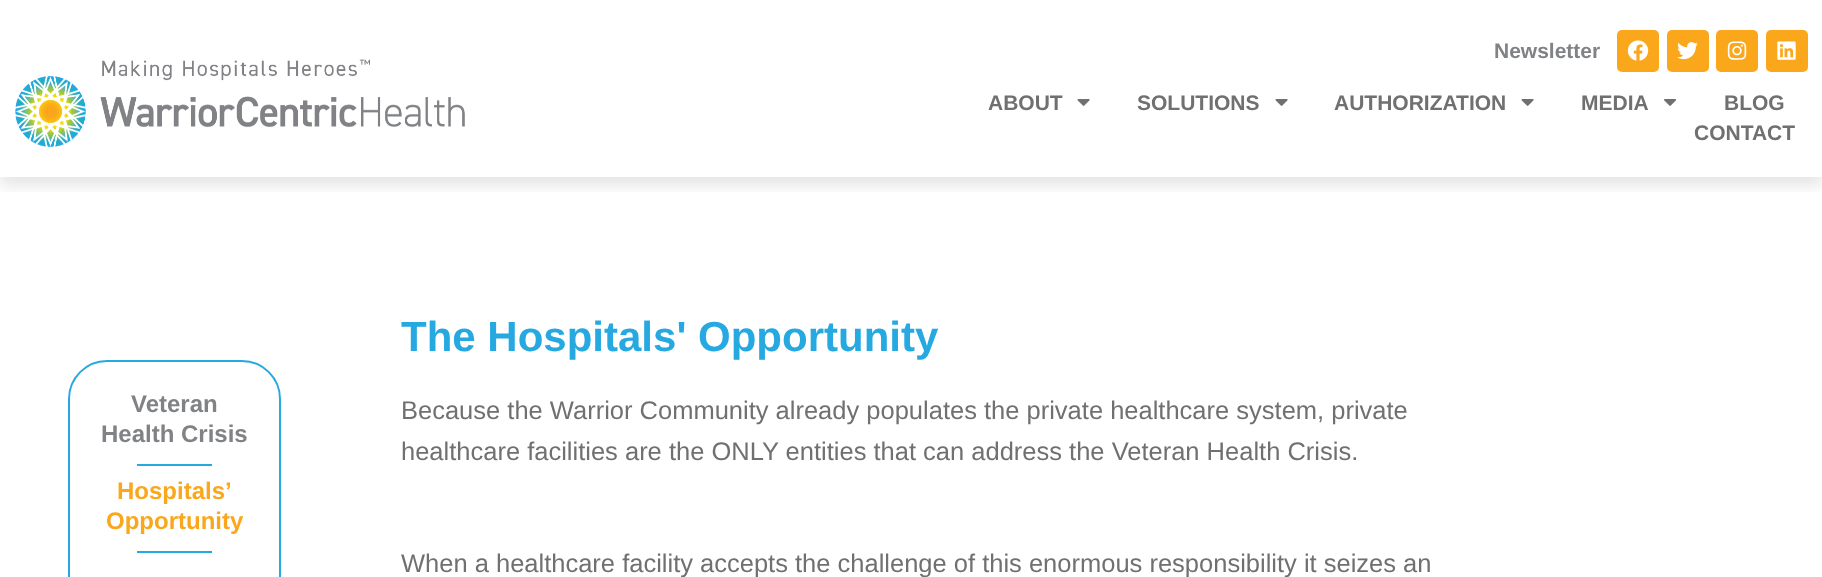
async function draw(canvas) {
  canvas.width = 1822
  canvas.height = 577
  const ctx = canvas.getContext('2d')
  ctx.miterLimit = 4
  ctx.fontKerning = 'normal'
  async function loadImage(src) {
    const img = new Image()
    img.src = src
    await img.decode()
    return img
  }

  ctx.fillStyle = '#fff'
  ctx.fillRect(0, 0, 1822, 577)
  ctx.save()
  ctx.beginPath()
  ctx.rect(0, 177, 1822, 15)
  ctx.clip()
  ctx.fillStyle = '#0000001a'
  ctx.filter = 'blur(7.5px)'
  ctx.beginPath()
  ctx.rect(0, 9, 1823, 177)
  ctx.fill()
  ctx.filter = 'none'
  ctx.restore()
  ctx.drawImage(await loadImage('image0.png'), 15, 59, 450, 88)
  ctx.font = 'bold 21px Liberation Sans'
  ctx.fillStyle = '#808285'
  ctx.fillText('Newsletter', 1494, 58)
  ctx.fillStyle = '#faa71b'
  ctx.beginPath()
  ctx.roundRect(1617, 30, 42, 42, 5)
  ctx.fill()
  ctx.drawImage(await loadImage('image1.png'), 1627, 40, 22, 21)
  ctx.beginPath()
  ctx.roundRect(1667, 30, 42, 42, 5)
  ctx.fill()
  ctx.drawImage(await loadImage('image2.png'), 1677, 42, 21, 18)
  ctx.beginPath()
  ctx.roundRect(1716, 30, 42, 42, 5)
  ctx.fill()
  ctx.drawImage(await loadImage('image3.png'), 1727, 41, 20, 19)
  ctx.beginPath()
  ctx.roundRect(1766, 30, 42, 42, 5)
  ctx.fill()
  ctx.drawImage(await loadImage('image4.png'), 1777, 41, 19, 19)
  ctx.fillStyle = '#707070'
  ctx.fillText('ABOUT', 988, 110)
  ctx.drawImage(await loadImage('image5.png'), 1077, 99, 13, 7)
  ctx.fillText('SOLUTIONS', 1137, 110)
  ctx.drawImage(await loadImage('image5.png'), 1275, 99, 13, 7)
  ctx.fillText('AUTHORIZATION', 1334, 110)
  ctx.drawImage(await loadImage('image5.png'), 1521, 99, 13, 7)
  ctx.fillText('MEDIA', 1581, 110)
  ctx.drawImage(await loadImage('image6.png'), 1664, 99, 13, 7)
  ctx.fillText('BLOG', 1724, 110)
  ctx.fillText('CONTACT', 1694, 140)
  ctx.beginPath()
  ctx.roundRect(69, 361, 211, 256, 38)
  ctx.strokeStyle = '#26a9e1'
  ctx.lineWidth = 2
  ctx.stroke()
  ctx.font = 'bold 24px Liberation Sans'
  ctx.fillStyle = '#808285'
  ctx.fillText('Veteran', 131, 412)
  ctx.fillText('Health Crisis', 101, 442)
  ctx.fillStyle = '#26a9e1'
  ctx.fillRect(137, 464, 75, 2)
  ctx.fillStyle = '#faa71b'
  ctx.fillText('Hospitals’', 117, 499)
  ctx.fillText('Opportunity', 106, 529)
  ctx.fillStyle = '#26a9e1'
  ctx.fillRect(137, 551, 75, 2)
  ctx.font = 'bold 42px Liberation Sans'
  ctx.fillText('The Hospitals\' Opportunity', 401, 351)
  ctx.font = '25.5px Liberation Sans'
  ctx.fillStyle = '#707070'
  ctx.fillText('Because the Warrior Community already populates the private healthcare system, private', 401, 419)
  ctx.fillText('healthcare facilities are the ONLY entities that can address the Veteran Health Crisis.', 401, 460)
  ctx.fillText('When a healthcare facility accepts the challenge of this enormous responsibility it seizes an', 401, 572)
}

draw(document.querySelector('canvas'))
